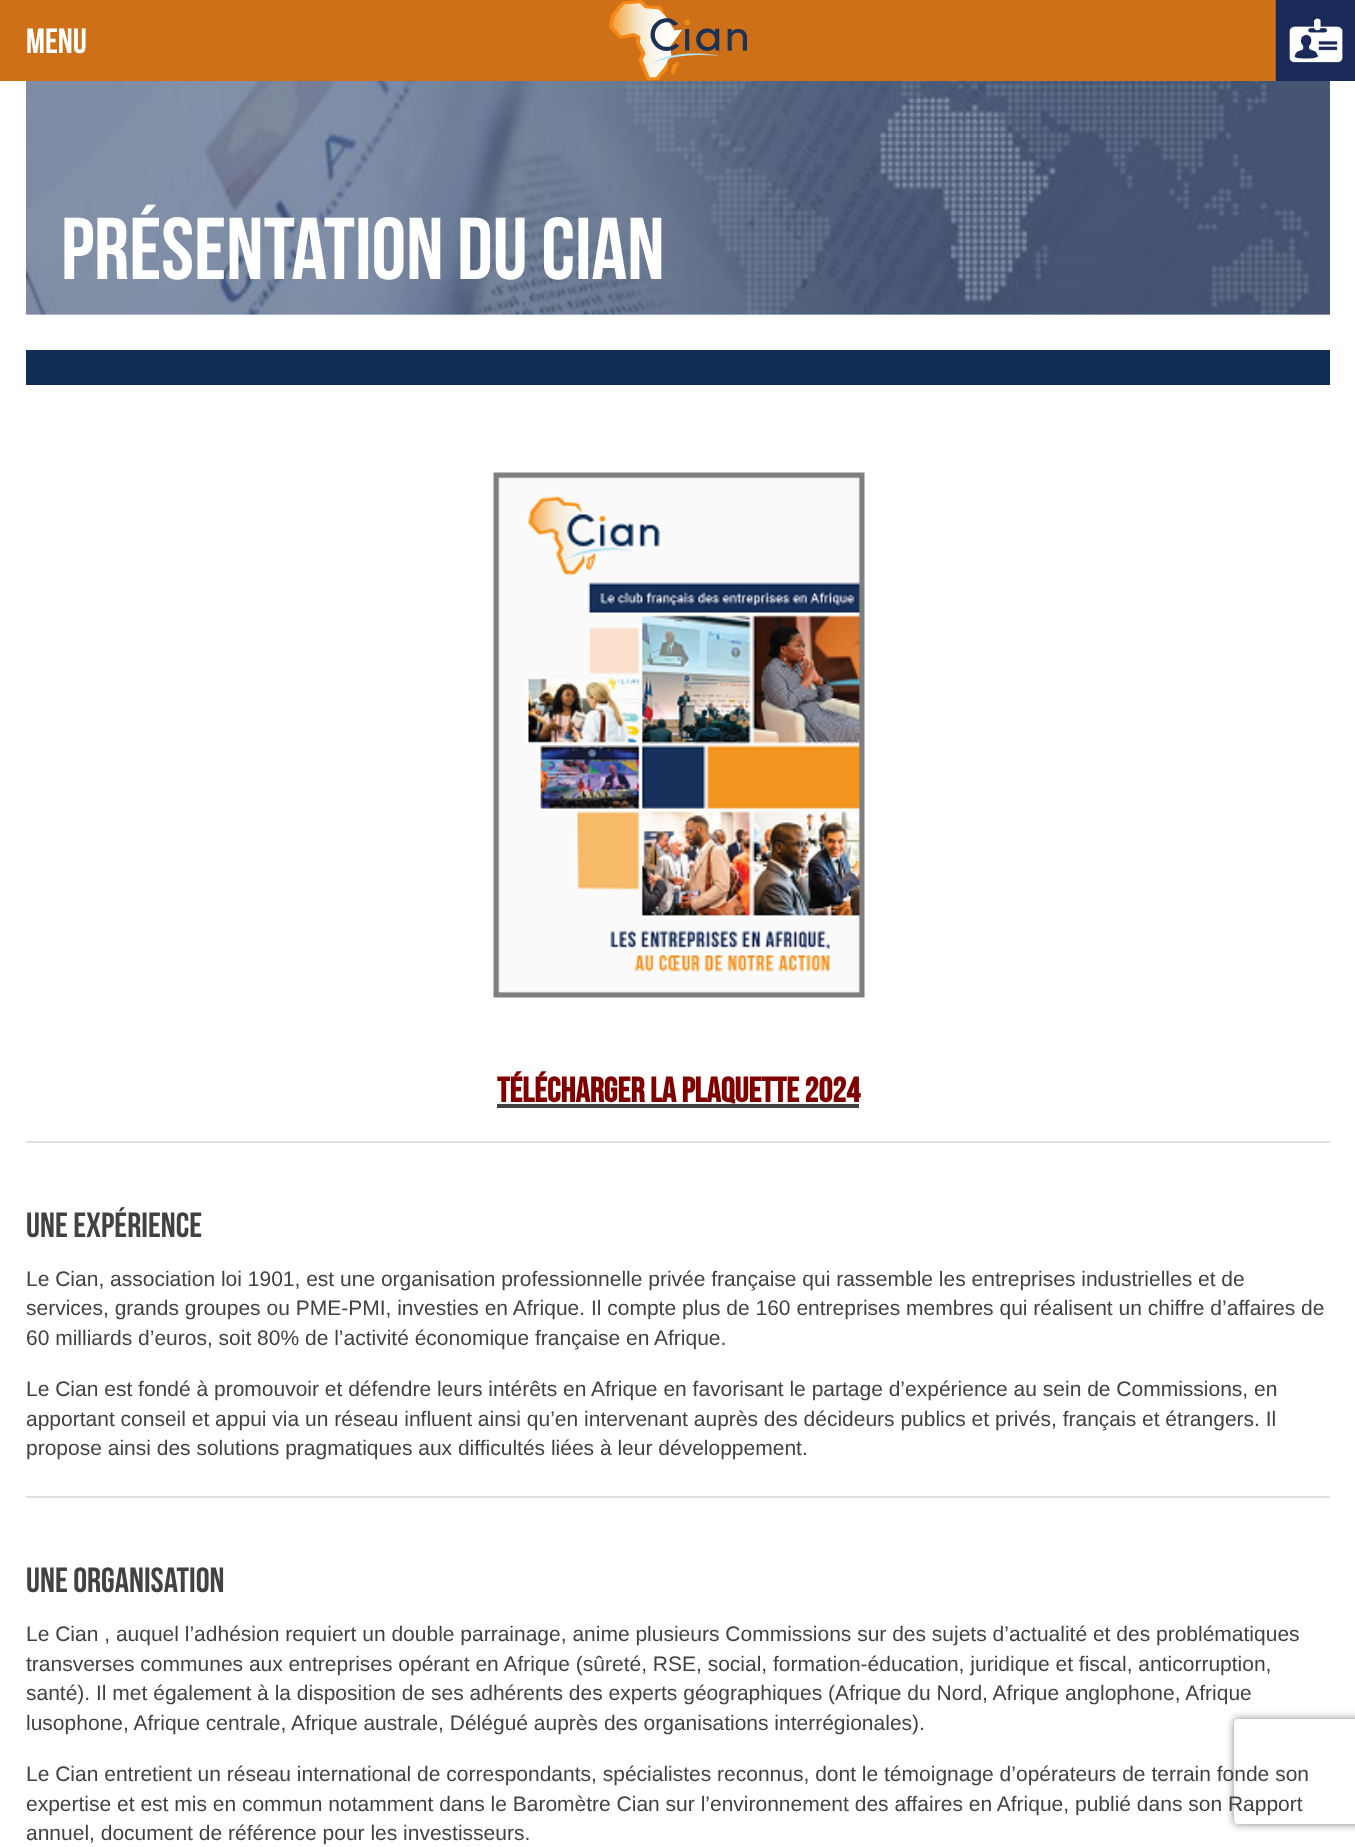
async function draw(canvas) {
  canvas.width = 1355
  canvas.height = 1847
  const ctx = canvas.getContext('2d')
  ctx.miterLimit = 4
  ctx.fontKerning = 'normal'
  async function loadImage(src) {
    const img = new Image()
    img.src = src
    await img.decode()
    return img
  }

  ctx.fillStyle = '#fff'
  ctx.fillRect(0, 0, 1355, 1847)
  ctx.fillStyle = '#ce7018'
  ctx.fillRect(0, 0, 1276, 81)
  ctx.font = '35px Bebas Neue'
  ctx.fillStyle = '#fff'
  ctx.fillText('MENU', 26, 53)
  ctx.drawImage(await loadImage('image0.png'), 609, 0, 138, 81)
  ctx.fillStyle = '#102d56'
  ctx.fillRect(1276, 80, 79, 1)
  ctx.drawImage(await loadImage('image1.png'), 1275, 0, 80, 81)
  ctx.drawImage(await loadImage('image2.png'), 26, 81, 1304, 234)
  ctx.font = '87.5px Bebas Neue'
  ctx.fillStyle = '#fff'
  ctx.fillText('Présentation du Cian', 61, 279)
  ctx.fillStyle = '#102d56'
  ctx.fillRect(26, 350, 1304, 35)
  ctx.drawImage(await loadImage('image3.png'), 493, 472, 372, 526)
  ctx.font = 'bold 35px Bebas Neue'
  ctx.fillStyle = '#800000'
  ctx.fillText('Télécharger la plaquette 2024', 497, 1102)
  ctx.fillStyle = '#434242'
  ctx.fillRect(497, 1104, 362, 4)
  ctx.fillStyle = '#dfdfdf'
  ctx.fillRect(26, 1141, 1304, 2)
  ctx.font = '35px Bebas Neue'
  ctx.fillStyle = '#434242'
  ctx.fillText('UNE EXPÉRIENCE', 26, 1237)
  ctx.font = '21px Liberation Sans'
  ctx.fillText('Le Cian, association loi 1901, est une organisation professionnelle privée française qui rassemble les entreprises industrielles et de', 26, 1286)
  ctx.fillText('services, grands groupes ou PME-PMI, investies en Afrique. Il compte plus de 160 entreprises membres qui réalisent un chiffre d’affaires de', 26, 1315)
  ctx.fillText('60 milliards d’euros, soit 80% de l’activité économique française en Afrique.', 26, 1345)
  ctx.fillText('Le Cian est fondé à promouvoir et défendre leurs intérêts en Afrique en favorisant le partage d’expérience au sein de Commissions, en', 26, 1396)
  ctx.fillText('apportant conseil et appui via un réseau influent ainsi qu’en intervenant auprès des décideurs publics et privés, français et étrangers. Il', 26, 1426)
  ctx.fillText('propose ainsi des solutions pragmatiques aux difficultés liées à leur développement.', 26, 1455)
  ctx.fillStyle = '#dfdfdf'
  ctx.fillRect(26, 1496, 1304, 2)
  ctx.font = '35px Bebas Neue'
  ctx.fillStyle = '#434242'
  ctx.fillText('UNE ORGANISATION', 26, 1592)
  ctx.font = '21px Liberation Sans'
  ctx.fillText('Le Cian , auquel l’adhésion requiert un double parrainage, anime plusieurs Commissions sur des sujets d’actualité et des problématiques', 26, 1641)
  ctx.fillText('transverses communes aux entreprises opérant en Afrique (sûreté, RSE, social, formation-éducation, juridique et fiscal, anticorruption,', 26, 1671)
  ctx.save()
  ctx.beginPath()
  ctx.moveTo(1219, 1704)
  ctx.lineTo(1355, 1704)
  ctx.lineTo(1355, 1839)
  ctx.lineTo(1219, 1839)
  ctx.closePath()
  ctx.moveTo(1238, 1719)
  ctx.lineTo(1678, 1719)
  ctx.bezierCurveTo(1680, 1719, 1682, 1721, 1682, 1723)
  ctx.lineTo(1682, 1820)
  ctx.bezierCurveTo(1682, 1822, 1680, 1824, 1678, 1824)
  ctx.lineTo(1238, 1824)
  ctx.bezierCurveTo(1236, 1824, 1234, 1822, 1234, 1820)
  ctx.lineTo(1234, 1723)
  ctx.bezierCurveTo(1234, 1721, 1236, 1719, 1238, 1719)
  ctx.closePath()
  ctx.clip('evenodd')
  ctx.fillStyle = '#808080'
  ctx.filter = 'blur(4.5px)'
  ctx.beginPath()
  ctx.roundRect(1234, 1719, 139, 105, 4)
  ctx.fill()
  ctx.filter = 'none'
  ctx.restore()
  ctx.fillText('santé). Il met également à la disposition de ses adhérents des experts géographiques (Afrique du Nord, Afrique anglophone, Afrique', 26, 1700)
  ctx.fillText('lusophone, Afrique centrale, Afrique australe, Délégué auprès des organisations interrégionales).', 26, 1730)
  ctx.fillText('Le Cian entretient un réseau international de correspondants, spécialistes reconnus, dont le témoignage d’opérateurs de terrain fonde son', 26, 1781)
  ctx.fillText('expertise et est mis en commun notamment dans le Baromètre Cian sur l’environnement des affaires en Afrique, publié dans son Rapport', 26, 1811)
  ctx.fillText('annuel, document de référence pour les investisseurs.', 26, 1840)
}

draw(document.querySelector('canvas'))
